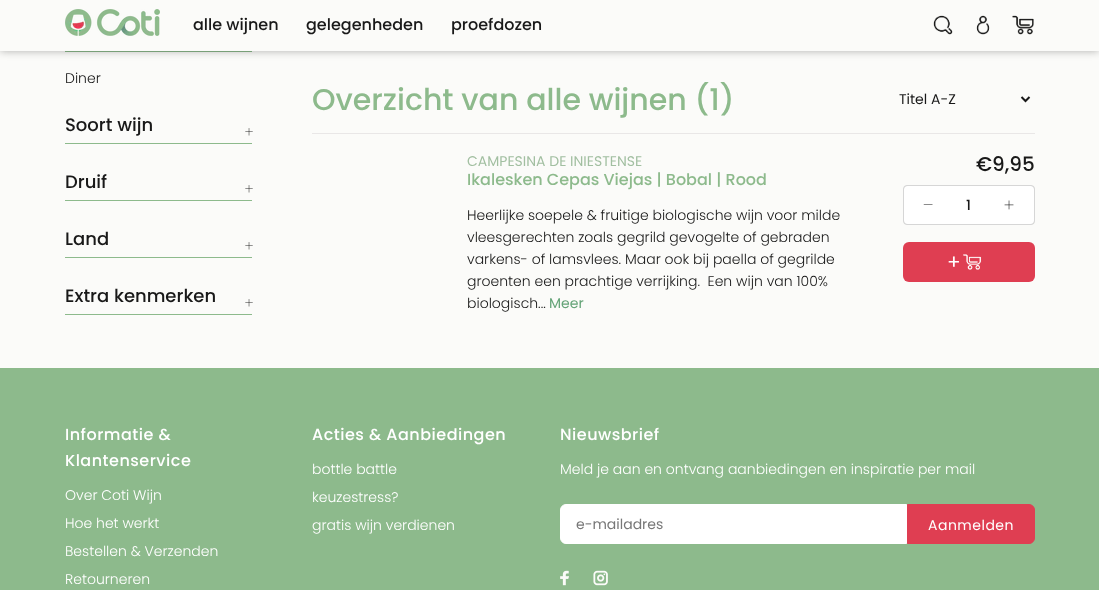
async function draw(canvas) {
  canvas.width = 1099
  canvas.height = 590
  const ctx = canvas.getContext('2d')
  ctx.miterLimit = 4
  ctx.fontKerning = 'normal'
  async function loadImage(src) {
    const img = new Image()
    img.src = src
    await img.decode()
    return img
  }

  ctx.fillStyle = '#fbfbf9'
  ctx.fillRect(0, 0, 1099, 590)
  ctx.fillStyle = '#8dba8c'
  ctx.fillRect(65, 51, 187, 1)
  ctx.fillStyle = '#0000004d'
  ctx.filter = 'blur(4px)'
  ctx.beginPath()
  ctx.rect(0, 0, 1099, 51)
  ctx.fill()
  ctx.filter = 'none'
  ctx.fillStyle = '#fbfbf9'
  ctx.fillRect(0, 0, 1099, 51)
  ctx.drawImage(await loadImage('image0.png'), 65, 9, 95, 27)
  ctx.font = '500 16px Poppins'
  ctx.fillStyle = '#191919'
  ctx.fillText('alle wijnen', 193, 30)
  ctx.fillText('gelegenheden', 306, 30)
  ctx.fillText('proefdozen', 451, 30)
  ctx.drawImage(await loadImage('image1.png'), 933, 15, 20, 20)
  ctx.drawImage(await loadImage('image2.png'), 976, 15, 14, 20)
  ctx.drawImage(await loadImage('image3.png'), 1012, 15, 22, 20)
  ctx.font = '300 14px Poppins'
  ctx.fillText('Diner', 65, 83)
  ctx.fillStyle = '#8dba8c'
  ctx.fillRect(65, 143, 187, 1)
  ctx.font = '500 18px Poppins'
  ctx.fillStyle = '#191919'
  ctx.fillText('Soort wijn', 65, 131)
  ctx.drawImage(await loadImage('image4.png'), 245, 128, 8, 8)
  ctx.fillStyle = '#8dba8c'
  ctx.fillRect(65, 200, 187, 1)
  ctx.fillStyle = '#191919'
  ctx.fillText('Druif', 65, 188)
  ctx.drawImage(await loadImage('image4.png'), 245, 185, 8, 8)
  ctx.fillStyle = '#8dba8c'
  ctx.fillRect(65, 257, 187, 1)
  ctx.fillStyle = '#191919'
  ctx.fillText('Land', 65, 245)
  ctx.drawImage(await loadImage('image4.png'), 245, 242, 8, 8)
  ctx.fillStyle = '#8dba8c'
  ctx.fillRect(65, 314, 187, 1)
  ctx.fillStyle = '#191919'
  ctx.fillText('Extra kenmerken', 65, 302)
  ctx.drawImage(await loadImage('image4.png'), 245, 299, 8, 8)
  ctx.font = '500 30px Poppins'
  ctx.fillStyle = '#8dba8c'
  ctx.fillText('Overzicht van alle wijnen (1)', 312, 110)
  ctx.beginPath()
  ctx.moveTo(1021.5, 97)
  ctx.lineTo(1025.5, 101)
  ctx.lineTo(1029.5, 97)
  ctx.strokeStyle = '#191919'
  ctx.lineWidth = 2
  ctx.stroke()
  ctx.font = '14px Poppins'
  ctx.fillStyle = '#191919'
  ctx.fillText('Titel A-Z', 899, 104)
  ctx.fillStyle = '#e9e7e7'
  ctx.fillRect(312, 133, 723, 1)
  ctx.fillStyle = '#a2bfa1'
  ctx.fillText('CAMPESINA DE INIESTENSE', 467, 166)
  ctx.font = '500 16px Poppins'
  ctx.fillStyle = '#8dba8c'
  ctx.fillText('Ikalesken Cepas Viejas | Bobal | Rood', 467, 185)
  ctx.font = '300 14px Poppins'
  ctx.fillStyle = '#191919'
  ctx.fillText('Heerlijke soepele & fruitige biologische wijn voor milde', 467, 220)
  ctx.fillText('vleesgerechten zoals gegrild gevogelte of gebraden', 467, 242)
  ctx.fillText('varkens- of lamsvlees. Maar ook bij paella of gegrilde', 467, 264)
  ctx.fillText('groenten een prachtige verrijking.  Een wijn van 100%', 467, 286)
  ctx.fillText('biologisch...', 467, 308)
  ctx.font = '14px Poppins'
  ctx.fillStyle = '#65a478'
  ctx.fillText('Meer', 549, 308)
  ctx.font = '500 20px Poppins'
  ctx.fillStyle = '#191919'
  ctx.fillText('€9,95', 976, 171)
  ctx.fillStyle = '#d6d6d6'
  ctx.beginPath()
  ctx.roundRect(903.5, 185.5, 131, 39, 3.5)
  ctx.fill()
  ctx.strokeStyle = '#d6d6d6'
  ctx.lineWidth = 1
  ctx.stroke()
  ctx.fillStyle = '#fff'
  ctx.beginPath()
  ctx.roundRect(904, 186, 130, 38, 6)
  ctx.fill()
  ctx.beginPath()
  ctx.roundRect(904, 186, 49, 38, 4)
  ctx.fill()
  ctx.fillStyle = '#191919'
  ctx.beginPath()
  ctx.moveTo(932.5, 204.5)
  ctx.lineTo(932.5, 205)
  ctx.lineTo(923.5, 205)
  ctx.lineTo(924, 204.5)
  ctx.closePath()
  ctx.fill()
  ctx.font = '500 14px Poppins'
  ctx.fillText('1', 966, 210)
  ctx.fillStyle = '#fff'
  ctx.beginPath()
  ctx.roundRect(985, 186, 49, 38, 4)
  ctx.fill()
  ctx.drawImage(await loadImage('image5.png'), 1004, 200, 10, 10)
  ctx.fillStyle = '#df3e52'
  ctx.beginPath()
  ctx.roundRect(903, 242, 132, 40, 6)
  ctx.fill()
  ctx.letterSpacing = '1px'
  ctx.font = '20px Poppins'
  ctx.fillStyle = '#fff'
  ctx.fillText('+', 947, 269)
  ctx.drawImage(await loadImage('image6.png'), 963, 254, 19, 16)
  ctx.fillStyle = '#8dba8c'
  ctx.fillRect(0, 368, 1099, 222)
  ctx.letterSpacing = '0.5px'
  ctx.font = '500 16px Poppins'
  ctx.fillStyle = '#fff'
  ctx.fillText('Informatie &', 65, 440)
  ctx.fillText('Klantenservice', 65, 466)
  ctx.letterSpacing = '0px'
  ctx.font = '300 14px Poppins'
  ctx.fillText('Over Coti Wijn', 65, 500)
  ctx.fillText('Hoe het werkt', 65, 528)
  ctx.fillText('Bestellen & Verzenden', 65, 556)
  ctx.fillText('Retourneren', 65, 584)
  ctx.letterSpacing = '0.5px'
  ctx.font = '500 16px Poppins'
  ctx.fillText('Acties & Aanbiedingen', 312, 440)
  ctx.letterSpacing = '0px'
  ctx.font = '300 14px Poppins'
  ctx.fillText('bottle battle', 312, 474)
  ctx.fillText('keuzestress?', 312, 502)
  ctx.fillText('gratis wijn verdienen', 312, 530)
  ctx.letterSpacing = '0.5px'
  ctx.font = '500 16px Poppins'
  ctx.fillText('Nieuwsbrief', 560, 440)
  ctx.letterSpacing = '0px'
  ctx.font = '300 14px Poppins'
  ctx.fillText('Meld je aan en ontvang aanbiedingen en inspiratie per mail', 560, 474)
  ctx.beginPath()
  ctx.roundRect(560.5, 504.5, 346, 39, [5.5, 0, 0, 5.5])
  ctx.fill()
  ctx.strokeStyle = '#fff'
  ctx.stroke()
  ctx.font = '14px Poppins'
  ctx.fillStyle = '#777'
  ctx.fillText('e-mailadres', 576, 529)
  ctx.fillStyle = '#df3e52'
  ctx.beginPath()
  ctx.roundRect(907.5, 504.5, 127, 39, [0, 5.5, 5.5, 0])
  ctx.fill()
  ctx.strokeStyle = '#df3e52'
  ctx.stroke()
  ctx.letterSpacing = '0.5px'
  ctx.fillStyle = '#fff'
  ctx.fillText('Aanmelden', 928, 530)
  ctx.drawImage(await loadImage('image7.png'), 560, 570, 9, 16)
  ctx.drawImage(await loadImage('image8.png'), 593, 570, 15, 16)
}

draw(document.querySelector('canvas'))
